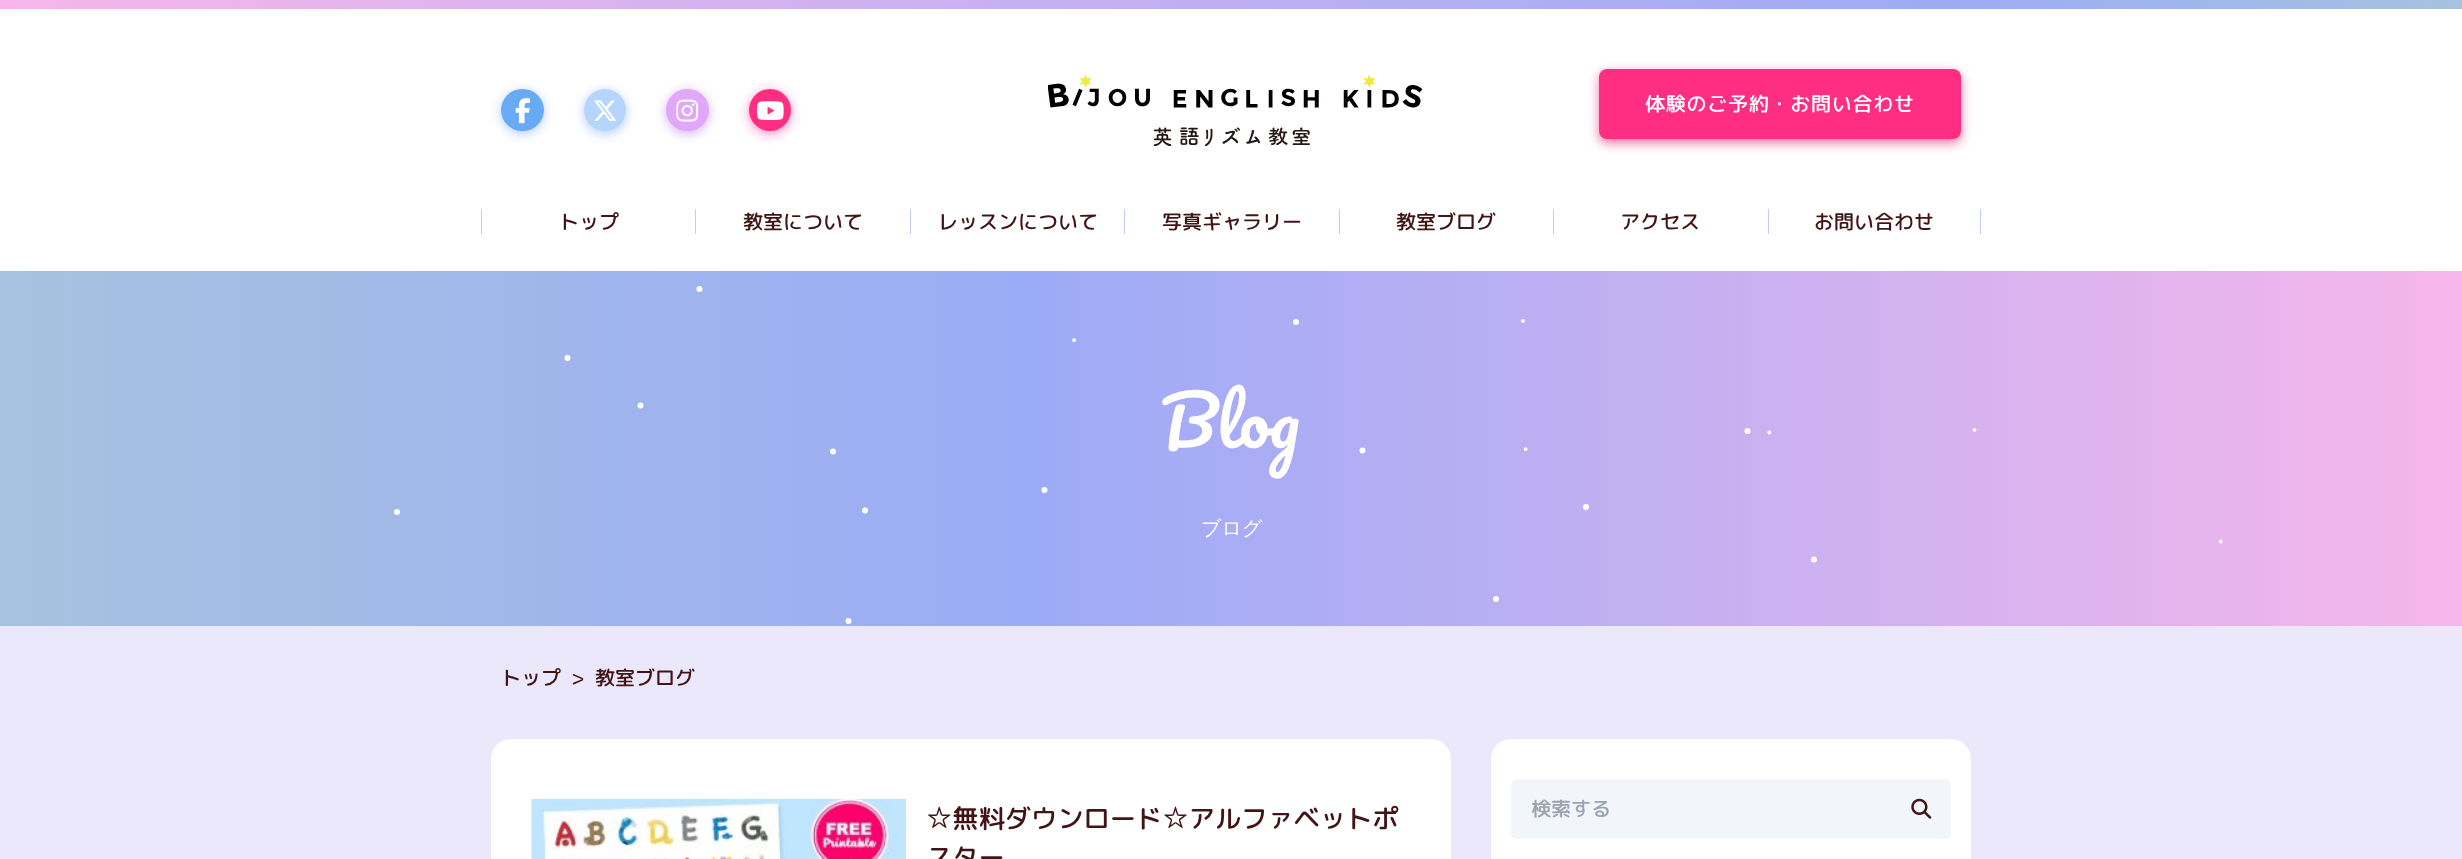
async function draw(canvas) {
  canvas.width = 2462
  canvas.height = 859
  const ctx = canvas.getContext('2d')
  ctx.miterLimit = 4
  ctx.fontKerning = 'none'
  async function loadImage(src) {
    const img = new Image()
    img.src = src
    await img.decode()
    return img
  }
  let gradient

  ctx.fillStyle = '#fff'
  ctx.fillRect(0, 0, 2462, 859)
  gradient = ctx.createLinearGradient(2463, 4.4, 0, 4.4)
  gradient.addColorStop(0, '#bdecdd')
  gradient.addColorStop(0, '#a4c3df')
  gradient.addColorStop(0.21, '#9cabf6')
  gradient.addColorStop(1, '#f6b6eb')
  ctx.fillStyle = gradient
  ctx.fillRect(0, 0, 2462, 9)
  ctx.fillStyle = '#b6ceff'
  ctx.filter = 'blur(5.5px)'
  ctx.beginPath()
  ctx.roundRect(501, 91, 43, 43, 21.5)
  ctx.fill()
  ctx.filter = 'none'
  ctx.fillStyle = '#69aaf5'
  ctx.beginPath()
  ctx.roundRect(501, 89, 43, 42, 21)
  ctx.fill()
  ctx.drawImage(await loadImage('image0.png'), 515, 98, 15, 26)
  ctx.fillStyle = '#b6ceff'
  ctx.filter = 'blur(5.5px)'
  ctx.beginPath()
  ctx.roundRect(584, 91, 42, 43, 21)
  ctx.fill()
  ctx.filter = 'none'
  ctx.fillStyle = '#b6d5fa'
  ctx.beginPath()
  ctx.arc(605, 110, 21, 0, 2 * Math.PI)
  ctx.fill()
  ctx.drawImage(await loadImage('image1.png'), 594, 100, 23, 21)
  ctx.fillStyle = '#d5b2f0'
  ctx.filter = 'blur(5.5px)'
  ctx.beginPath()
  ctx.roundRect(666, 91, 43, 43, 21.5)
  ctx.fill()
  ctx.filter = 'none'
  ctx.fillStyle = '#e0a7fa'
  ctx.beginPath()
  ctx.roundRect(666, 89, 43, 42, 21)
  ctx.fill()
  ctx.drawImage(await loadImage('image2.png'), 676, 99, 23, 23)
  ctx.fillStyle = '#ff8ec7'
  ctx.filter = 'blur(5.5px)'
  ctx.beginPath()
  ctx.roundRect(749, 91, 42, 43, 21)
  ctx.fill()
  ctx.filter = 'none'
  ctx.fillStyle = '#ff2e83'
  ctx.beginPath()
  ctx.arc(770, 110, 21, 0, 2 * Math.PI)
  ctx.fill()
  ctx.drawImage(await loadImage('image3.png'), 757, 101, 27, 19)
  ctx.drawImage(await loadImage('image4.png'), 1048, 75, 375, 71)
  ctx.fillStyle = '#e973a3'
  ctx.filter = 'blur(5.5px)'
  ctx.beginPath()
  ctx.roundRect(1599, 73, 362, 70, 8)
  ctx.fill()
  ctx.filter = 'none'
  ctx.fillStyle = '#ff2e83'
  ctx.beginPath()
  ctx.roundRect(1599, 69, 362, 70, 8)
  ctx.fill()
  ctx.letterSpacing = '0.75px'
  ctx.font = '500 20px "Rounded Mplus 1c"'
  ctx.fillStyle = '#fff'
  ctx.fillText('体験のご予約・お問い合わせ', 1645, 111)
  ctx.fillStyle = '#c4cdfa'
  ctx.fillRect(481, 209, 1, 25)
  ctx.letterSpacing = '0px'
  ctx.fillStyle = '#411515'
  ctx.fillText('トップ', 559, 229)
  ctx.fillStyle = '#c4cdfa'
  ctx.fillRect(695, 209, 1, 25)
  ctx.fillStyle = '#411515'
  ctx.fillText('教室について', 743, 229)
  ctx.fillStyle = '#c4cdfa'
  ctx.fillRect(910, 209, 1, 25)
  ctx.fillStyle = '#411515'
  ctx.fillText('レッスンについて', 938, 229)
  ctx.fillStyle = '#c4cdfa'
  ctx.fillRect(1124, 209, 1, 25)
  ctx.fillStyle = '#411515'
  ctx.fillText('写真ギャラリー', 1162, 229)
  ctx.fillStyle = '#c4cdfa'
  ctx.fillRect(1339, 209, 1, 25)
  ctx.fillStyle = '#411515'
  ctx.fillText('教室ブログ', 1396, 229)
  ctx.fillStyle = '#c4cdfa'
  ctx.fillRect(1553, 209, 1, 25)
  ctx.fillStyle = '#411515'
  ctx.fillText('アクセス', 1620, 229)
  ctx.fillStyle = '#c4cdfa'
  ctx.fillRect(1768, 209, 1, 25)
  ctx.fillStyle = '#411515'
  ctx.fillText('お問い合わせ', 1814, 229)
  ctx.fillStyle = '#c4cdfa'
  ctx.fillRect(1980, 209, 1, 25)
  gradient = ctx.createLinearGradient(0, 449, 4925, 449)
  gradient.addColorStop(0, '#bdecdd')
  gradient.addColorStop(0, '#a4c3df')
  gradient.addColorStop(0.21, '#9cabf6')
  gradient.addColorStop(0.5, '#f6b6eb')
  gradient.addColorStop(0.79, '#9cabf6')
  gradient.addColorStop(1, '#a4c3df')
  gradient.addColorStop(1, '#bdecdd')
  ctx.fillStyle = gradient
  ctx.fillRect(0, 271, 2462, 355)
  ctx.fillStyle = '#fff'
  ctx.beginPath()
  ctx.arc(567.5, 358, 3, 0, 2 * Math.PI)
  ctx.fill()
  ctx.beginPath()
  ctx.arc(1586, 507, 3, 0, 2 * Math.PI)
  ctx.fill()
  ctx.beginPath()
  ctx.arc(699.5, 289, 3, 0, 2 * Math.PI)
  ctx.fill()
  ctx.beginPath()
  ctx.arc(833, 451.5, 3, 0, 2 * Math.PI)
  ctx.fill()
  ctx.beginPath()
  ctx.arc(640.5, 405.5, 3, 0, 2 * Math.PI)
  ctx.fill()
  ctx.beginPath()
  ctx.arc(865, 510.5, 3, 0, 2 * Math.PI)
  ctx.fill()
  ctx.beginPath()
  ctx.arc(397, 512, 3, 0, 2 * Math.PI)
  ctx.fill()
  ctx.beginPath()
  ctx.arc(848.5, 621, 3, 0, 2 * Math.PI)
  ctx.fill()
  ctx.beginPath()
  ctx.arc(1296, 322, 3, 0, 2 * Math.PI)
  ctx.fill()
  ctx.beginPath()
  ctx.arc(1747.5, 431, 3, 0, 2 * Math.PI)
  ctx.fill()
  ctx.beginPath()
  ctx.arc(1362.5, 450.5, 3, 0, 2 * Math.PI)
  ctx.fill()
  ctx.beginPath()
  ctx.arc(1814, 559.5, 3, 0, 2 * Math.PI)
  ctx.fill()
  ctx.beginPath()
  ctx.arc(1523, 320.9, 1.9, 0, 2 * Math.PI)
  ctx.fill()
  ctx.beginPath()
  ctx.arc(1974.5, 429.9, 1.9, 0, 2 * Math.PI)
  ctx.fill()
  ctx.beginPath()
  ctx.arc(1769.3, 432.5, 1.9, 0, 2 * Math.PI)
  ctx.fill()
  ctx.beginPath()
  ctx.arc(2220.7, 541.5, 1.9, 0, 2 * Math.PI)
  ctx.fill()
  ctx.beginPath()
  ctx.arc(1074.1, 340.2, 1.9, 0, 2 * Math.PI)
  ctx.fill()
  ctx.beginPath()
  ctx.arc(1525.6, 449.2, 1.9, 0, 2 * Math.PI)
  ctx.fill()
  ctx.beginPath()
  ctx.arc(1044.5, 490, 3, 0, 2 * Math.PI)
  ctx.fill()
  ctx.beginPath()
  ctx.arc(1496, 599, 3, 0, 2 * Math.PI)
  ctx.fill()
  ctx.font = '67.5px Pacifico'
  ctx.fillText('Blog', 1161, 448)
  ctx.font = '500 20px WenQuanYi Zen Hei'
  ctx.fillText('ブログ', 1201, 535)
  ctx.fillStyle = '#ece8fb'
  ctx.fillRect(0, 626, 2462, 233)
  ctx.font = '500 20px "Rounded Mplus 1c"'
  ctx.fillStyle = '#411515'
  ctx.fillText('トップ', 501, 685)
  ctx.fillText('>', 571, 685)
  ctx.fillText('教室ブログ', 595, 685)
  ctx.fillStyle = '#fff'
  ctx.beginPath()
  ctx.roundRect(491, 739, 960, 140, 20)
  ctx.fill()
  ctx.drawImage(await loadImage('image5.png'), 531, 798, 376, 61)
  ctx.font = '500 26.25px "Rounded Mplus 1c"'
  ctx.fillStyle = '#411515'
  ctx.fillText('☆無料ダウンロード☆アルファベットポ', 926, 828)
  ctx.fillText('スター', 926, 867)
  ctx.fillStyle = '#fff'
  ctx.beginPath()
  ctx.roundRect(1491, 739, 480, 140, 20)
  ctx.fill()
  ctx.fillStyle = '#f2f6fb'
  ctx.beginPath()
  ctx.roundRect(1511, 779, 440, 60, 6)
  ctx.fill()
  ctx.font = '500 20px "Rounded Mplus 1c"'
  ctx.fillStyle = '#9ca3af'
  ctx.fillText('検索する', 1531, 816)
  ctx.drawImage(await loadImage('image6.png'), 1911, 798, 21, 21)
}

draw(document.querySelector('canvas'))
